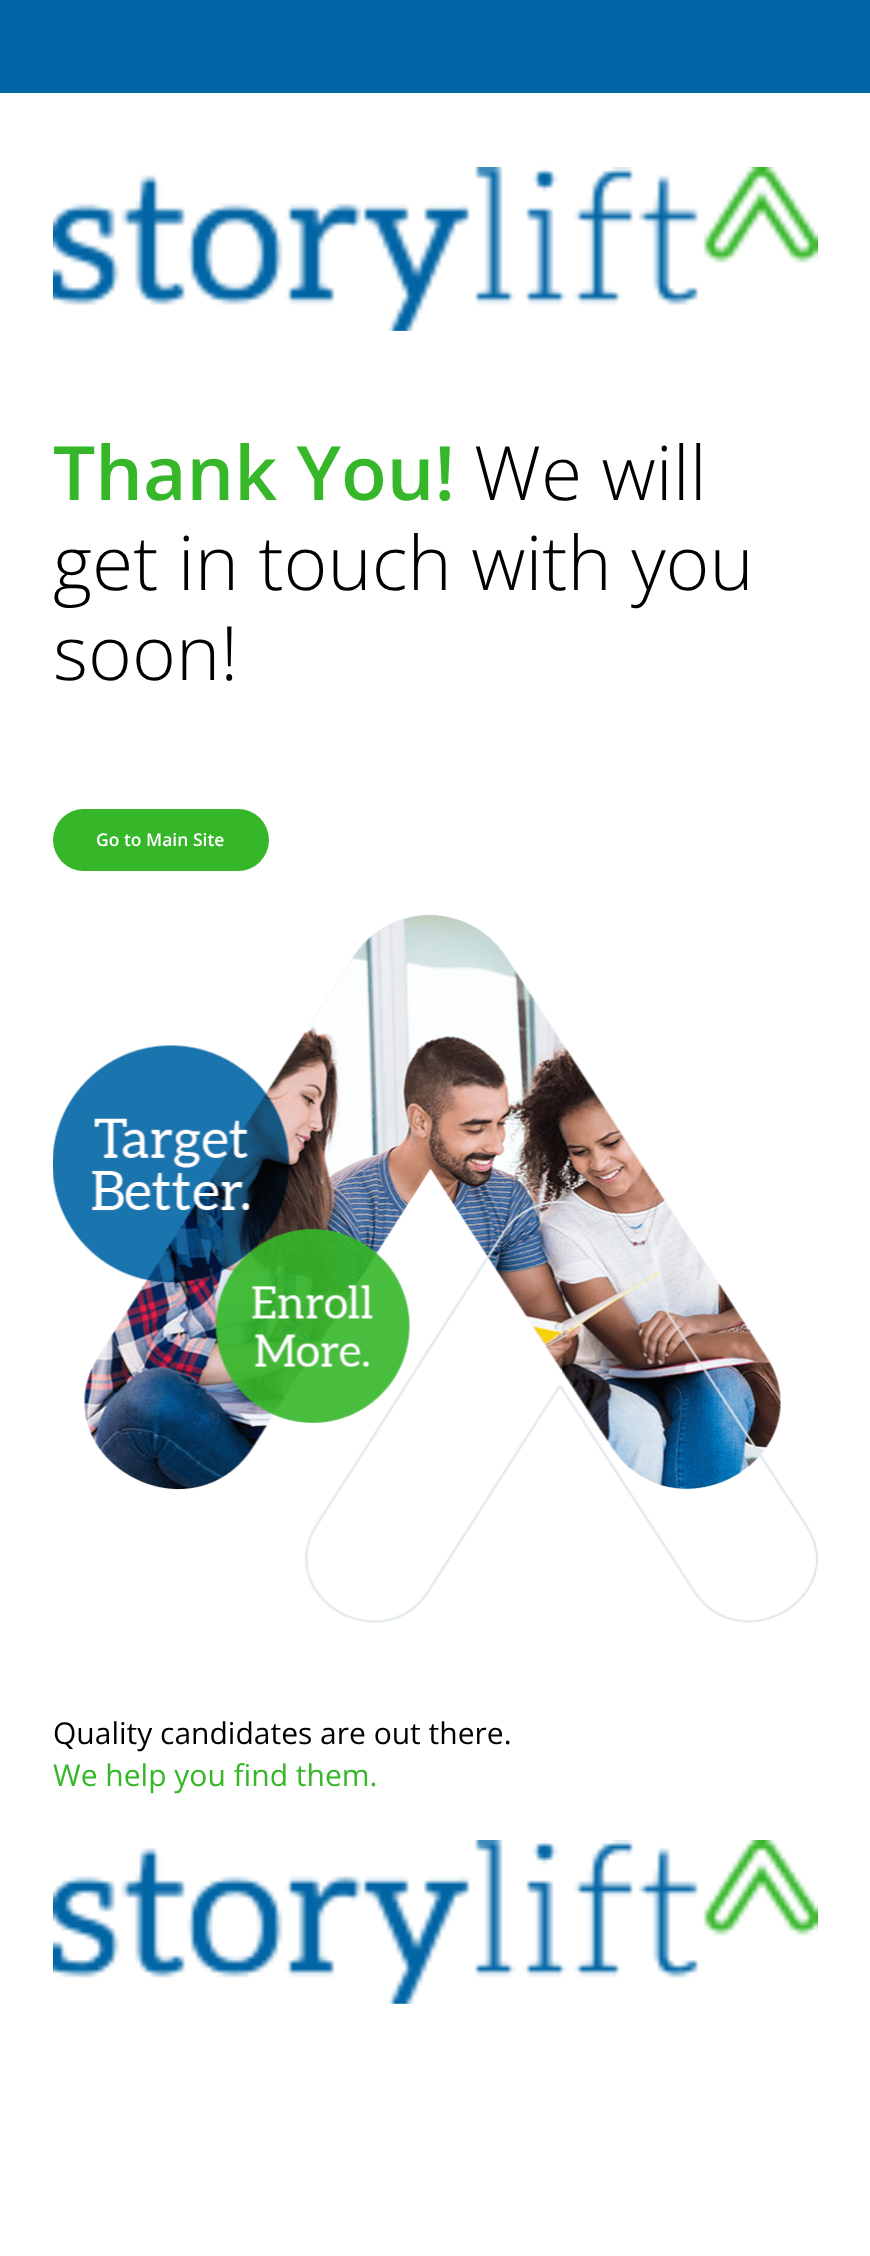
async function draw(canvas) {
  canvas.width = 870
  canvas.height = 2256
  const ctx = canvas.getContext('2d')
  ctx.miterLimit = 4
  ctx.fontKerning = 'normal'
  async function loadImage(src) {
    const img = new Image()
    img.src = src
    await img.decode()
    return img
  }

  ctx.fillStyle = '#fff'
  ctx.fillRect(0, 0, 870, 2256)
  ctx.fillStyle = '#0165a5'
  ctx.fillRect(0, 0, 870, 93)
  ctx.drawImage(await loadImage('image0.png'), 53, 167, 765, 164)
  ctx.font = '600 75px Open Sans'
  ctx.fillStyle = '#35b729'
  ctx.fillText('Thank You!', 53, 500)
  ctx.font = '300 75px Open Sans'
  ctx.fillStyle = '#000'
  ctx.fillText('We will', 474, 500)
  ctx.fillText('get in touch with you', 53, 590)
  ctx.fillText('soon!', 53, 680)
  ctx.fillStyle = '#35b729'
  ctx.beginPath()
  ctx.roundRect(53, 809, 216, 62, 31)
  ctx.fill()
  ctx.font = '600 17.5px Open Sans'
  ctx.fillStyle = '#fff'
  ctx.fillText('Go to Main Site', 96, 846)
  ctx.drawImage(await loadImage('image1.png'), 53, 915, 765, 708)
  ctx.font = '30px Open Sans'
  ctx.fillStyle = '#000'
  ctx.fillText('Quality candidates are out there.', 53, 1744)
  ctx.fillStyle = '#35b729'
  ctx.fillText('We help you find them.', 53, 1786)
  ctx.drawImage(await loadImage('image2.png'), 53, 1840, 765, 164)
}

draw(document.querySelector('canvas'))
